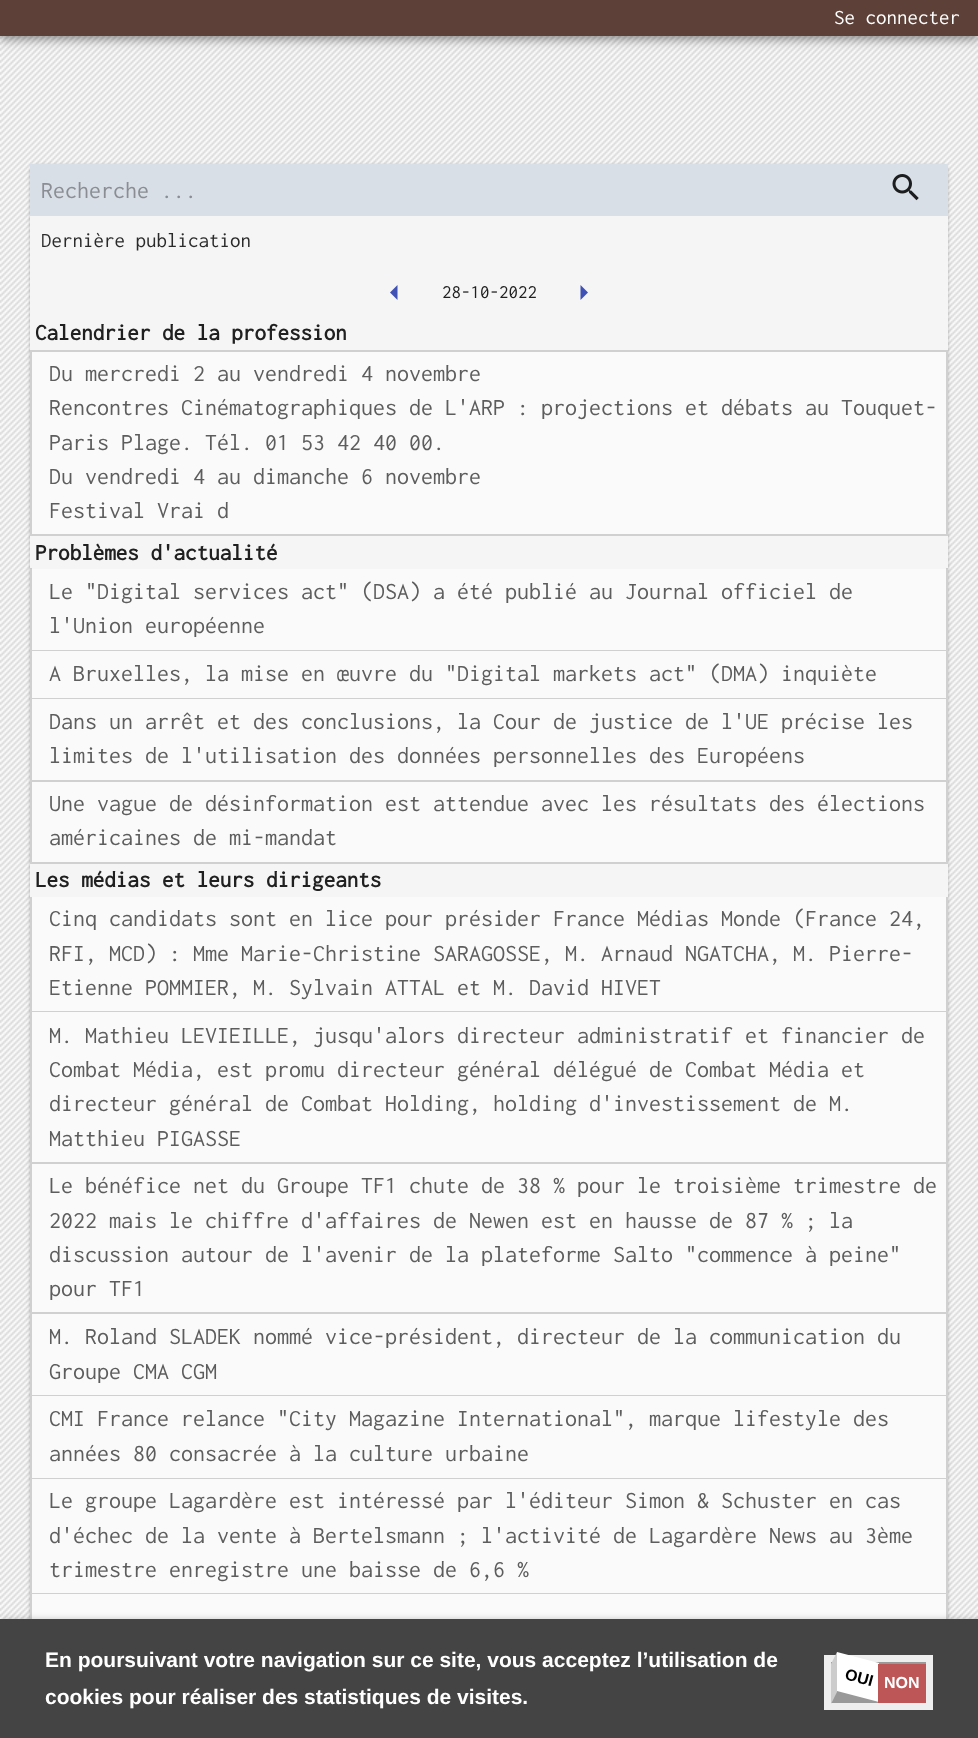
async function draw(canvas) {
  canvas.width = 978
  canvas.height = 1738
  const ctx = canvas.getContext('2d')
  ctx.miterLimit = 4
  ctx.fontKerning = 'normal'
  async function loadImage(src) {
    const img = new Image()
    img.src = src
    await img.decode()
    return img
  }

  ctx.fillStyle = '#fafafa'
  ctx.fillRect(0, 0, 978, 1738)
  ctx.drawImage(await loadImage('image0.png'), 0, 36, 978, 1583)
  ctx.fillStyle = '#0000001f'
  ctx.filter = 'blur(7.5px)'
  ctx.beginPath()
  ctx.rect(0, 2, 978, 36)
  ctx.fill()
  ctx.filter = 'none'
  ctx.fillStyle = '#00000024'
  ctx.filter = 'blur(4px)'
  ctx.beginPath()
  ctx.rect(0, 6, 978, 36)
  ctx.fill()
  ctx.filter = 'none'
  ctx.fillStyle = '#00000033'
  ctx.filter = 'blur(3px)'
  ctx.beginPath()
  ctx.rect(2, 5, 975, 33)
  ctx.fill()
  ctx.filter = 'none'
  ctx.fillStyle = '#5d4037'
  ctx.fillRect(0, 0, 978, 36)
  ctx.font = '21px Inconsolata'
  ctx.fillStyle = '#fff'
  ctx.fillText('Se connecter', 834, 24)
  ctx.fillStyle = '#0000001f'
  ctx.filter = 'blur(2px)'
  ctx.beginPath()
  ctx.roundRect(30, 165, 918, 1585, 6)
  ctx.fill()
  ctx.filter = 'none'
  ctx.fillStyle = '#00000024'
  ctx.filter = 'blur(1px)'
  ctx.beginPath()
  ctx.roundRect(30, 165, 918, 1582, 6)
  ctx.fill()
  ctx.filter = 'none'
  ctx.fillStyle = '#f5f5f5'
  ctx.fillRect(30, 216, 918, 681)
  ctx.fillStyle = '#d9dfe7'
  ctx.fillRect(30, 164, 918, 52)
  ctx.font = '24px Inconsolata'
  ctx.fillStyle = '#8a8d93'
  ctx.fillText('Recherche ...', 41, 198)
  ctx.drawImage(await loadImage('image1.png'), 892, 174, 27, 27)
  ctx.font = '21px Inconsolata'
  ctx.fillStyle = '#2a2a2a'
  ctx.fillText('Dernière publication', 41, 247)
  ctx.fillStyle = '#3f51b5'
  ctx.beginPath()
  ctx.moveTo(397.5, 285)
  ctx.lineTo(390, 292.5)
  ctx.lineTo(397.5, 300)
  ctx.closePath()
  ctx.fill()
  ctx.font = '19px Inconsolata'
  ctx.fillStyle = '#202020'
  ctx.fillText('28-10-2022', 442, 298)
  ctx.fillStyle = '#3f51b5'
  ctx.beginPath()
  ctx.moveTo(580.5, 300)
  ctx.lineTo(588, 292.5)
  ctx.lineTo(580.5, 285)
  ctx.closePath()
  ctx.fill()
  ctx.font = 'bold 23.1px Inconsolata'
  ctx.fillStyle = '#202020'
  ctx.fillText('Calendrier de la profession', 35, 340)
  ctx.fillStyle = '#fafafa'
  ctx.beginPath()
  ctx.rect(31, 351, 916, 184)
  ctx.fill()
  ctx.strokeStyle = '#d0d0d0'
  ctx.lineWidth = 2
  ctx.stroke()
  ctx.font = '24px Inconsolata'
  ctx.fillStyle = '#5d5d5d'
  ctx.fillText('Du mercredi 2 au vendredi 4 novembre', 49, 381)
  ctx.fillText('Rencontres Cinématographiques de L\'ARP : projections et débats au Touquet-', 49, 415)
  ctx.fillText('Paris Plage. Tél. 01 53 42 40 00.', 49, 450)
  ctx.fillText('Du vendredi 4 au dimanche 6 novembre', 49, 484)
  ctx.fillText('Festival Vrai d', 49, 518)
  ctx.font = 'bold 23.1px Inconsolata'
  ctx.fillStyle = '#202020'
  ctx.fillText('Problèmes d\'actualité', 35, 560)
  ctx.fillStyle = '#fafafa'
  ctx.fillRect(30, 569, 918, 295)
  ctx.fillStyle = '#0000002b'
  ctx.beginPath()
  ctx.moveTo(948, 568)
  ctx.lineTo(948, 651)
  ctx.lineTo(946, 650)
  ctx.lineTo(946, 568)
  ctx.closePath()
  ctx.fill()
  ctx.beginPath()
  ctx.moveTo(948, 651)
  ctx.lineTo(30, 651)
  ctx.lineTo(32, 650)
  ctx.lineTo(946, 650)
  ctx.closePath()
  ctx.fill()
  ctx.beginPath()
  ctx.moveTo(30, 651)
  ctx.lineTo(30, 568)
  ctx.lineTo(32, 568)
  ctx.lineTo(32, 650)
  ctx.closePath()
  ctx.fill()
  ctx.font = '24px Inconsolata'
  ctx.fillStyle = '#5d5d5d'
  ctx.fillText('Le "Digital services act" (DSA) a été publié au Journal officiel de', 49, 599)
  ctx.fillText('l\'Union européenne', 49, 633)
  ctx.fillStyle = '#d0d0d0'
  ctx.beginPath()
  ctx.moveTo(948, 651)
  ctx.lineTo(948, 699)
  ctx.lineTo(946, 698)
  ctx.lineTo(946, 651)
  ctx.closePath()
  ctx.fill()
  ctx.fillStyle = '#0000002b'
  ctx.beginPath()
  ctx.moveTo(948, 699)
  ctx.lineTo(30, 699)
  ctx.lineTo(32, 698)
  ctx.lineTo(946, 698)
  ctx.closePath()
  ctx.fill()
  ctx.beginPath()
  ctx.moveTo(30, 699)
  ctx.lineTo(30, 651)
  ctx.lineTo(32, 651)
  ctx.lineTo(32, 698)
  ctx.closePath()
  ctx.fill()
  ctx.fillStyle = '#5d5d5d'
  ctx.fillText('A Bruxelles, la mise en œuvre du "Digital markets act" (DMA) inquiète', 49, 681)
  ctx.fillStyle = '#d0d0d0'
  ctx.beginPath()
  ctx.moveTo(948, 699)
  ctx.lineTo(948, 782)
  ctx.lineTo(946, 780)
  ctx.lineTo(946, 699)
  ctx.closePath()
  ctx.fill()
  ctx.fillStyle = '#0000002b'
  ctx.beginPath()
  ctx.moveTo(948, 782)
  ctx.lineTo(30, 782)
  ctx.lineTo(32, 780)
  ctx.lineTo(946, 780)
  ctx.closePath()
  ctx.fill()
  ctx.beginPath()
  ctx.moveTo(30, 782)
  ctx.lineTo(30, 699)
  ctx.lineTo(32, 699)
  ctx.lineTo(32, 780)
  ctx.closePath()
  ctx.fill()
  ctx.fillStyle = '#5d5d5d'
  ctx.fillText('Dans un arrêt et des conclusions, la Cour de justice de l\'UE précise les', 49, 729)
  ctx.fillText('limites de l\'utilisation des données personnelles des Européens', 49, 763)
  ctx.fillStyle = '#d0d0d0'
  ctx.beginPath()
  ctx.moveTo(948, 782)
  ctx.lineTo(948, 864)
  ctx.lineTo(946, 862)
  ctx.lineTo(946, 782)
  ctx.closePath()
  ctx.fill()
  ctx.fillStyle = '#0000002b'
  ctx.beginPath()
  ctx.moveTo(948, 864)
  ctx.lineTo(30, 864)
  ctx.lineTo(32, 862)
  ctx.lineTo(946, 862)
  ctx.closePath()
  ctx.fill()
  ctx.beginPath()
  ctx.moveTo(30, 864)
  ctx.lineTo(30, 782)
  ctx.lineTo(32, 782)
  ctx.lineTo(32, 862)
  ctx.closePath()
  ctx.fill()
  ctx.fillStyle = '#5d5d5d'
  ctx.fillText('Une vague de désinformation est attendue avec les résultats des élections', 49, 811)
  ctx.fillText('américaines de mi-mandat', 49, 845)
  ctx.font = 'bold 23.1px Inconsolata'
  ctx.fillStyle = '#202020'
  ctx.fillText('Les médias et leurs dirigeants', 35, 887)
  ctx.fillStyle = '#fafafa'
  ctx.fillRect(30, 897, 918, 698)
  ctx.fillStyle = '#d0d0d0'
  ctx.beginPath()
  ctx.moveTo(948, 897)
  ctx.lineTo(948, 1012)
  ctx.lineTo(946, 1011)
  ctx.lineTo(946, 897)
  ctx.closePath()
  ctx.fill()
  ctx.fillStyle = '#0000002b'
  ctx.beginPath()
  ctx.moveTo(948, 1012)
  ctx.lineTo(30, 1012)
  ctx.lineTo(32, 1011)
  ctx.lineTo(946, 1011)
  ctx.closePath()
  ctx.fill()
  ctx.beginPath()
  ctx.moveTo(30, 1012)
  ctx.lineTo(30, 897)
  ctx.lineTo(32, 897)
  ctx.lineTo(32, 1011)
  ctx.closePath()
  ctx.fill()
  ctx.font = '24px Inconsolata'
  ctx.fillStyle = '#5d5d5d'
  ctx.fillText('Cinq candidats sont en lice pour présider France Médias Monde (France 24,', 49, 926)
  ctx.fillText('RFI, MCD) : Mme Marie-Christine SARAGOSSE, M. Arnaud NGATCHA, M. Pierre-', 49, 961)
  ctx.fillText('Etienne POMMIER, M. Sylvain ATTAL et M. David HIVET', 49, 995)
  ctx.fillStyle = '#d0d0d0'
  ctx.beginPath()
  ctx.moveTo(948, 1012)
  ctx.lineTo(948, 1164)
  ctx.lineTo(946, 1162)
  ctx.lineTo(946, 1012)
  ctx.closePath()
  ctx.fill()
  ctx.fillStyle = '#0000002b'
  ctx.beginPath()
  ctx.moveTo(948, 1164)
  ctx.lineTo(30, 1164)
  ctx.lineTo(32, 1162)
  ctx.lineTo(946, 1162)
  ctx.closePath()
  ctx.fill()
  ctx.beginPath()
  ctx.moveTo(30, 1164)
  ctx.lineTo(30, 1012)
  ctx.lineTo(32, 1012)
  ctx.lineTo(32, 1162)
  ctx.closePath()
  ctx.fill()
  ctx.fillStyle = '#5d5d5d'
  ctx.fillText('M. Mathieu LEVIEILLE, jusqu\'alors directeur administratif et financier de', 49, 1043)
  ctx.fillText('Combat Média, est promu directeur général délégué de Combat Média et', 49, 1077)
  ctx.fillText('directeur général de Combat Holding, holding d\'investissement de M.', 49, 1111)
  ctx.fillText('Matthieu PIGASSE', 49, 1146)
  ctx.fillStyle = '#d0d0d0'
  ctx.beginPath()
  ctx.moveTo(948, 1164)
  ctx.lineTo(948, 1314)
  ctx.lineTo(946, 1312)
  ctx.lineTo(946, 1164)
  ctx.closePath()
  ctx.fill()
  ctx.fillStyle = '#0000002b'
  ctx.beginPath()
  ctx.moveTo(948, 1314)
  ctx.lineTo(30, 1314)
  ctx.lineTo(32, 1312)
  ctx.lineTo(946, 1312)
  ctx.closePath()
  ctx.fill()
  ctx.beginPath()
  ctx.moveTo(30, 1314)
  ctx.lineTo(30, 1164)
  ctx.lineTo(32, 1164)
  ctx.lineTo(32, 1312)
  ctx.closePath()
  ctx.fill()
  ctx.fillStyle = '#5d5d5d'
  ctx.fillText('Le bénéfice net du Groupe TF1 chute de 38 % pour le troisième trimestre de', 49, 1193)
  ctx.fillText('2022 mais le chiffre d\'affaires de Newen est en hausse de 87 % ; la', 49, 1228)
  ctx.fillText('discussion autour de l\'avenir de la plateforme Salto "commence à peine"', 49, 1262)
  ctx.fillText('pour TF1', 49, 1296)
  ctx.fillStyle = '#d0d0d0'
  ctx.beginPath()
  ctx.moveTo(948, 1314)
  ctx.lineTo(948, 1396)
  ctx.lineTo(946, 1395)
  ctx.lineTo(946, 1314)
  ctx.closePath()
  ctx.fill()
  ctx.fillStyle = '#0000002b'
  ctx.beginPath()
  ctx.moveTo(948, 1396)
  ctx.lineTo(30, 1396)
  ctx.lineTo(32, 1395)
  ctx.lineTo(946, 1395)
  ctx.closePath()
  ctx.fill()
  ctx.beginPath()
  ctx.moveTo(30, 1396)
  ctx.lineTo(30, 1314)
  ctx.lineTo(32, 1314)
  ctx.lineTo(32, 1395)
  ctx.closePath()
  ctx.fill()
  ctx.fillStyle = '#5d5d5d'
  ctx.fillText('M. Roland SLADEK nommé vice-président, directeur de la communication du', 49, 1344)
  ctx.fillText('Groupe CMA CGM', 49, 1379)
  ctx.fillStyle = '#d0d0d0'
  ctx.beginPath()
  ctx.moveTo(948, 1396)
  ctx.lineTo(948, 1479)
  ctx.lineTo(946, 1478)
  ctx.lineTo(946, 1396)
  ctx.closePath()
  ctx.fill()
  ctx.fillStyle = '#0000002b'
  ctx.beginPath()
  ctx.moveTo(948, 1479)
  ctx.lineTo(30, 1479)
  ctx.lineTo(32, 1478)
  ctx.lineTo(946, 1478)
  ctx.closePath()
  ctx.fill()
  ctx.beginPath()
  ctx.moveTo(30, 1479)
  ctx.lineTo(30, 1396)
  ctx.lineTo(32, 1396)
  ctx.lineTo(32, 1478)
  ctx.closePath()
  ctx.fill()
  ctx.fillStyle = '#5d5d5d'
  ctx.fillText('CMI France relance "City Magazine International", marque lifestyle des', 49, 1426)
  ctx.fillText('années 80 consacrée à la culture urbaine', 49, 1461)
  ctx.fillStyle = '#d0d0d0'
  ctx.beginPath()
  ctx.moveTo(948, 1479)
  ctx.lineTo(948, 1594)
  ctx.lineTo(946, 1593)
  ctx.lineTo(946, 1479)
  ctx.closePath()
  ctx.fill()
  ctx.fillStyle = '#0000002b'
  ctx.beginPath()
  ctx.moveTo(948, 1594)
  ctx.lineTo(30, 1594)
  ctx.lineTo(32, 1593)
  ctx.lineTo(946, 1593)
  ctx.closePath()
  ctx.fill()
  ctx.beginPath()
  ctx.moveTo(30, 1594)
  ctx.lineTo(30, 1479)
  ctx.lineTo(32, 1479)
  ctx.lineTo(32, 1593)
  ctx.closePath()
  ctx.fill()
  ctx.fillStyle = '#5d5d5d'
  ctx.fillText('Le groupe Lagardère est intéressé par l\'éditeur Simon & Schuster en cas', 49, 1508)
  ctx.fillText('d\'échec de la vente à Bertelsmann ; l\'activité de Lagardère News au 3ème', 49, 1543)
  ctx.fillText('trimestre enregistre une baisse de 6,6 %', 49, 1577)
  ctx.fillStyle = '#fafafa'
  ctx.fillRect(30, 1595, 916, 24)
  ctx.fillStyle = '#d0d0d0'
  ctx.beginPath()
  ctx.moveTo(948, 1594)
  ctx.lineTo(948, 1712)
  ctx.lineTo(946, 1710)
  ctx.lineTo(946, 1594)
  ctx.closePath()
  ctx.fill()
  ctx.fillStyle = '#0000002b'
  ctx.beginPath()
  ctx.moveTo(30, 1712)
  ctx.lineTo(30, 1594)
  ctx.lineTo(32, 1594)
  ctx.lineTo(32, 1710)
  ctx.closePath()
  ctx.fill()
  ctx.fillStyle = '#00000033'
  ctx.filter = 'blur(3px)'
  ctx.beginPath()
  ctx.rect(2, 1619, 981, 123)
  ctx.fill()
  ctx.filter = 'none'
  ctx.fillStyle = '#444'
  ctx.fillRect(0, 1619, 978, 119)
  ctx.font = 'bold 21px Liberation Sans'
  ctx.fillStyle = '#fff'
  ctx.fillText('En poursuivant votre navigation sur ce site, vous acceptez l’utilisation de', 45, 1667)
  ctx.fillText('cookies pour réaliser des statistiques de visites.', 45, 1704)
  ctx.fillStyle = '#eee'
  ctx.fillRect(824, 1703, 109, 7)
  ctx.fillStyle = '#999'
  ctx.fillRect(831, 1662, 95, 41)
  ctx.fillStyle = '#eee'
  ctx.fillRect(824, 1655, 109, 7)
  ctx.fillRect(926, 1655, 7, 48)
  ctx.fillRect(824, 1655, 7, 48)
  ctx.fillStyle = '#fff'
  ctx.beginPath()
  ctx.moveTo(837, 1652)
  ctx.lineTo(879, 1663)
  ctx.lineTo(879, 1702)
  ctx.lineTo(837, 1691)
  ctx.closePath()
  ctx.fill()
  ctx.fillStyle = '#ccc'
  ctx.beginPath()
  ctx.moveTo(831, 1664)
  ctx.lineTo(837, 1652)
  ctx.lineTo(837, 1692)
  ctx.lineTo(831, 1704)
  ctx.closePath()
  ctx.fill()
  ctx.font = 'bold 16px Liberation Sans'
  ctx.fillStyle = '#000'
  ctx.save()
  ctx.translate(844, 1679)
  ctx.rotate(15 * Math.PI / 180)
  ctx.fillText('OUI', 0, 0)
  ctx.restore()
  ctx.fillStyle = '#bd5757'
  ctx.fillRect(878, 1664, 48, 39)
  ctx.fillStyle = '#fff'
  ctx.fillText('NON', 884, 1688)
}

draw(document.querySelector('canvas'))
